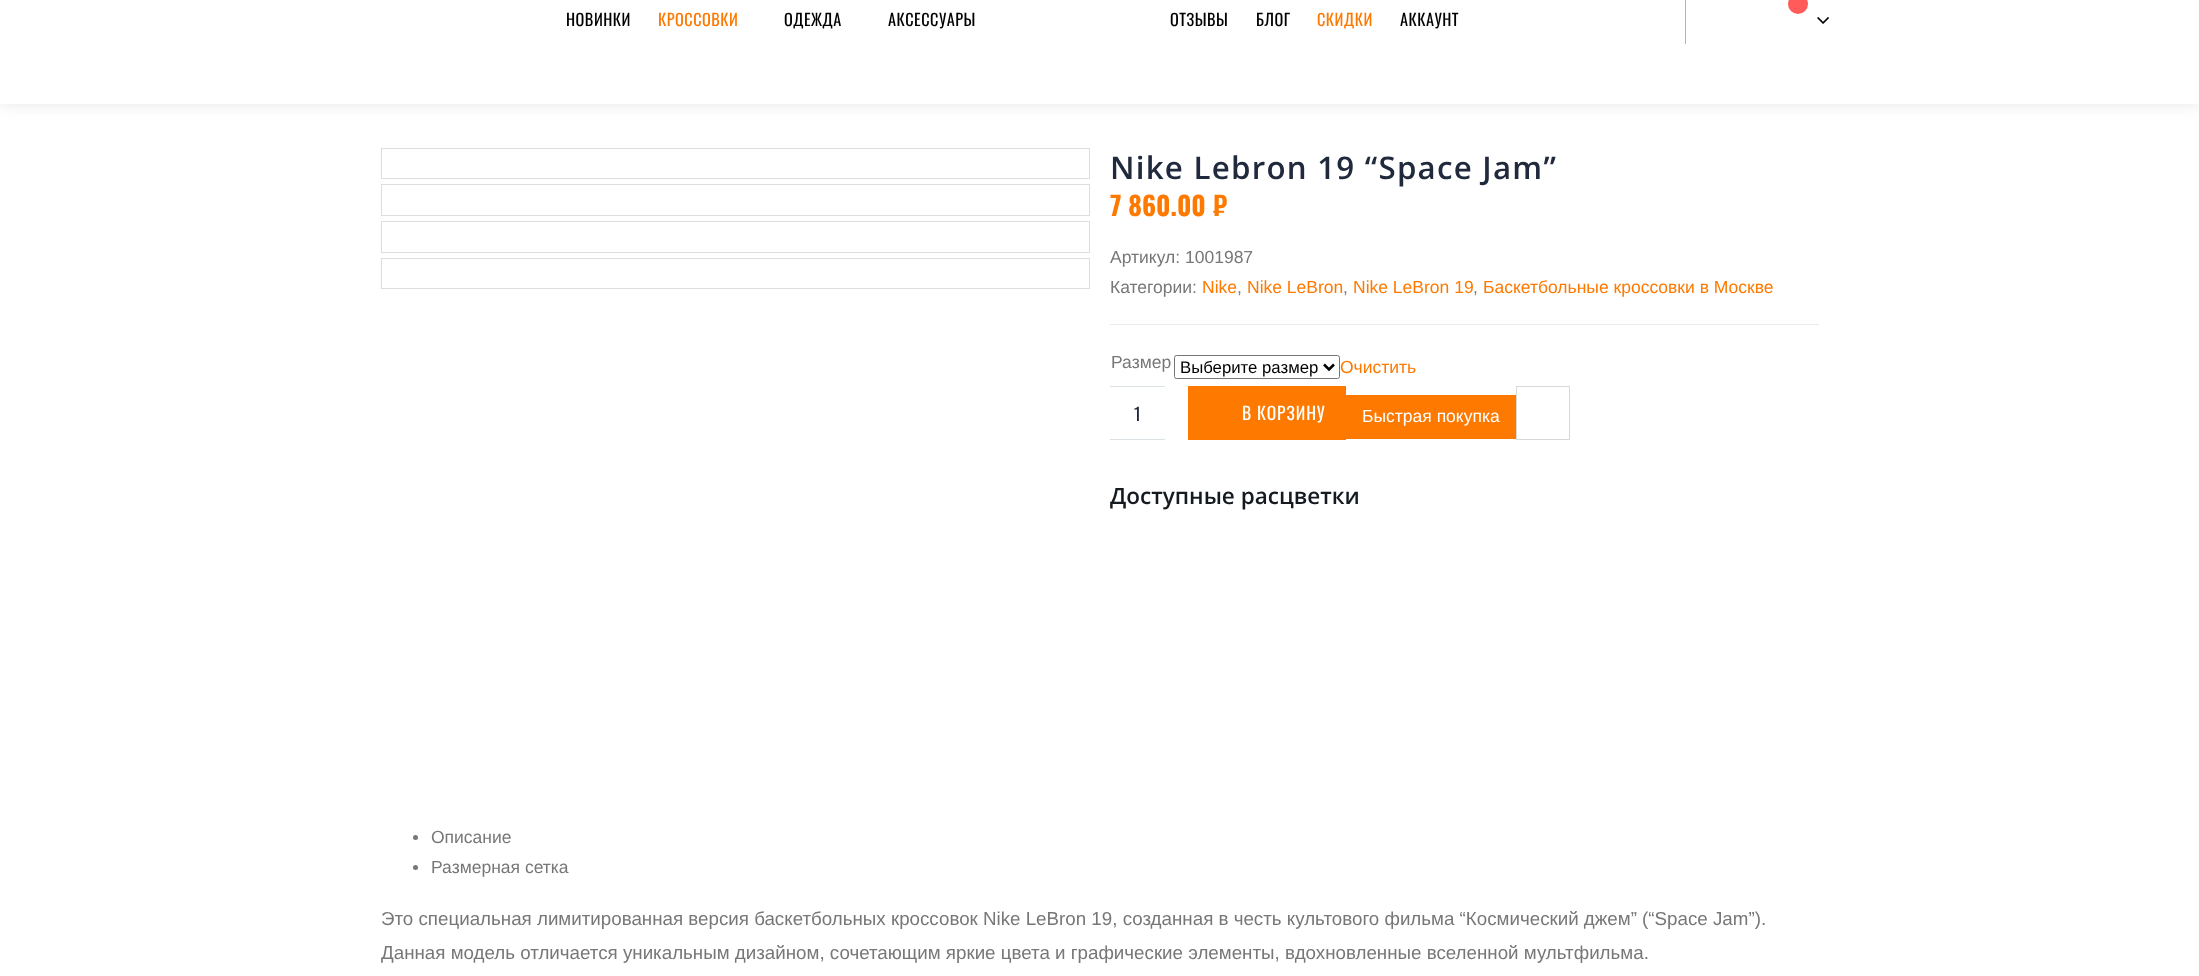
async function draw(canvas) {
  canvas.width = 2199
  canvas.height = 976
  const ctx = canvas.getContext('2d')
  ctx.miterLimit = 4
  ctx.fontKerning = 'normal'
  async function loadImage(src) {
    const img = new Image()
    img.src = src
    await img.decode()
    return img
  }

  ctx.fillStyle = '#fff'
  ctx.fillRect(0, 0, 2199, 976)
  ctx.fillStyle = '#00000014'
  ctx.filter = 'blur(7.5px)'
  ctx.beginPath()
  ctx.rect(0, 3, 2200, 103)
  ctx.fill()
  ctx.filter = 'none'
  ctx.fillStyle = '#fff'
  ctx.fillRect(0, 0, 2199, 104)
  ctx.letterSpacing = '0.5px'
  ctx.font = '16.25px Oswald'
  ctx.fillStyle = '#000'
  ctx.fillText('НОВИНКИ', 566, 26)
  ctx.fillStyle = '#fe7900'
  ctx.fillText('КРОССОВКИ', 658, 26)
  ctx.fillStyle = '#000'
  ctx.fillText('ОДЕЖДА', 784, 26)
  ctx.fillText('АКСЕССУАРЫ', 888, 26)
  ctx.fillText('ОТЗЫВЫ', 1170, 26)
  ctx.fillText('БЛОГ', 1256, 26)
  ctx.fillStyle = '#fe7900'
  ctx.fillText('СКИДКИ', 1317, 26)
  ctx.fillStyle = '#000'
  ctx.fillText('АККАУНТ', 1400, 26)
  ctx.fillStyle = '#b3b3b3'
  ctx.fillRect(1685, 0, 1, 44)
  ctx.fillStyle = '#ff5b5b'
  ctx.beginPath()
  ctx.arc(1798, 4, 10, 0, 2 * Math.PI)
  ctx.fill()
  ctx.drawImage(await loadImage('image0.png'), 1817, 17, 12, 7)
  ctx.strokeStyle = '#ddd'
  ctx.strokeRect(381.5, 148.5, 708, 30)
  ctx.strokeRect(381.5, 184.5, 708, 31)
  ctx.strokeRect(381.5, 221.5, 708, 31)
  ctx.strokeRect(381.5, 258.5, 708, 30)
  ctx.letterSpacing = '1.25px'
  ctx.font = '600 31.25px Open Sans'
  ctx.fillStyle = '#21293c'
  ctx.fillText('Nike Lebron 19 “Space Jam”', 1110, 179)
  ctx.letterSpacing = '0px'
  ctx.font = 'bold 26.25px Oswald'
  ctx.fillStyle = '#fe7900'
  ctx.fillText('7 860.00 ₽', 1110, 216)
  ctx.fillStyle = '#ebebeb'
  ctx.fillRect(1110, 324, 709, 1)
  ctx.font = '17.5px Liberation Sans'
  ctx.fillStyle = '#777'
  ctx.fillText('Артикул: 1001987', 1110, 263)
  ctx.fillText('Категории:', 1110, 293)
  ctx.fillStyle = '#fe7900'
  ctx.fillText('Nike', 1202, 293)
  ctx.fillStyle = '#777'
  ctx.fillText(',', 1237, 293)
  ctx.fillStyle = '#fe7900'
  ctx.fillText('Nike LeBron', 1247, 293)
  ctx.fillStyle = '#777'
  ctx.fillText(',', 1343, 293)
  ctx.fillStyle = '#fe7900'
  ctx.fillText('Nike LeBron 19', 1353, 293)
  ctx.fillStyle = '#777'
  ctx.fillText(',', 1473, 293)
  ctx.fillStyle = '#fe7900'
  ctx.fillText('Баскетбольные кроссовки в Москве', 1483, 293)
  ctx.fillStyle = '#777'
  ctx.fillText('Размер', 1111, 368)
  ctx.beginPath()
  ctx.roundRect(1174.5, 355.5, 165, 23, 2)
  ctx.strokeStyle = '#767676'
  ctx.stroke()
  ctx.beginPath()
  ctx.moveTo(1324, 364.5)
  ctx.lineTo(1329, 369.5)
  ctx.lineTo(1334, 364.5)
  ctx.strokeStyle = '#000'
  ctx.lineWidth = 2.5
  ctx.stroke()
  ctx.font = '16.75px Liberation Sans'
  ctx.fillStyle = '#000'
  ctx.fillText('Выберите размер', 1180, 373)
  ctx.font = '17.5px Liberation Sans'
  ctx.fillStyle = '#fe7900'
  ctx.fillText('Очистить', 1340, 373)
  ctx.fillStyle = '#dae2e6'
  ctx.fillRect(1110, 386, 55, 1)
  ctx.fillRect(1110, 439, 55, 1)
  ctx.font = '17.5px Oswald'
  ctx.fillStyle = '#21293c'
  ctx.fillText('1', 1134, 421)
  ctx.fillStyle = '#fe7900'
  ctx.fillRect(1188, 386, 158, 54)
  ctx.letterSpacing = '0.9px'
  ctx.fillStyle = '#fff'
  ctx.fillText('В КОРЗИНУ', 1242, 420)
  ctx.fillStyle = '#fe7900'
  ctx.fillRect(1346, 395, 170, 44)
  ctx.letterSpacing = '0px'
  ctx.font = '17.5px Liberation Sans'
  ctx.fillStyle = '#fff'
  ctx.fillText('Быстрая покупка', 1362, 422)
  ctx.strokeStyle = '#d8d8d6'
  ctx.lineWidth = 1
  ctx.strokeRect(1516.5, 386.5, 53, 53)
  ctx.font = '600 22.5px Open Sans'
  ctx.fillStyle = '#141a1f'
  ctx.fillText('Доступные расцветки', 1110, 504)
  ctx.fillStyle = '#777'
  ctx.beginPath()
  ctx.arc(415.5, 837.5, 2.5, 0, 2 * Math.PI)
  ctx.fill()
  ctx.font = '17.5px Liberation Sans'
  ctx.fillText('Описание', 431, 843)
  ctx.beginPath()
  ctx.arc(415.5, 867.5, 2.5, 0, 2 * Math.PI)
  ctx.fill()
  ctx.fillText('Размерная сетка', 431, 873)
  ctx.font = '18.75px Liberation Sans'
  ctx.fillText('Это специальная лимитированная версия баскетбольных кроссовок Nike LeBron 19, созданная в честь культового фильма “Космический джем” (“Space Jam”).', 381, 925)
  ctx.fillText('Данная модель отличается уникальным дизайном, сочетающим яркие цвета и графические элементы, вдохновленные вселенной мультфильма.', 381, 959)
}

draw(document.querySelector('canvas'))
